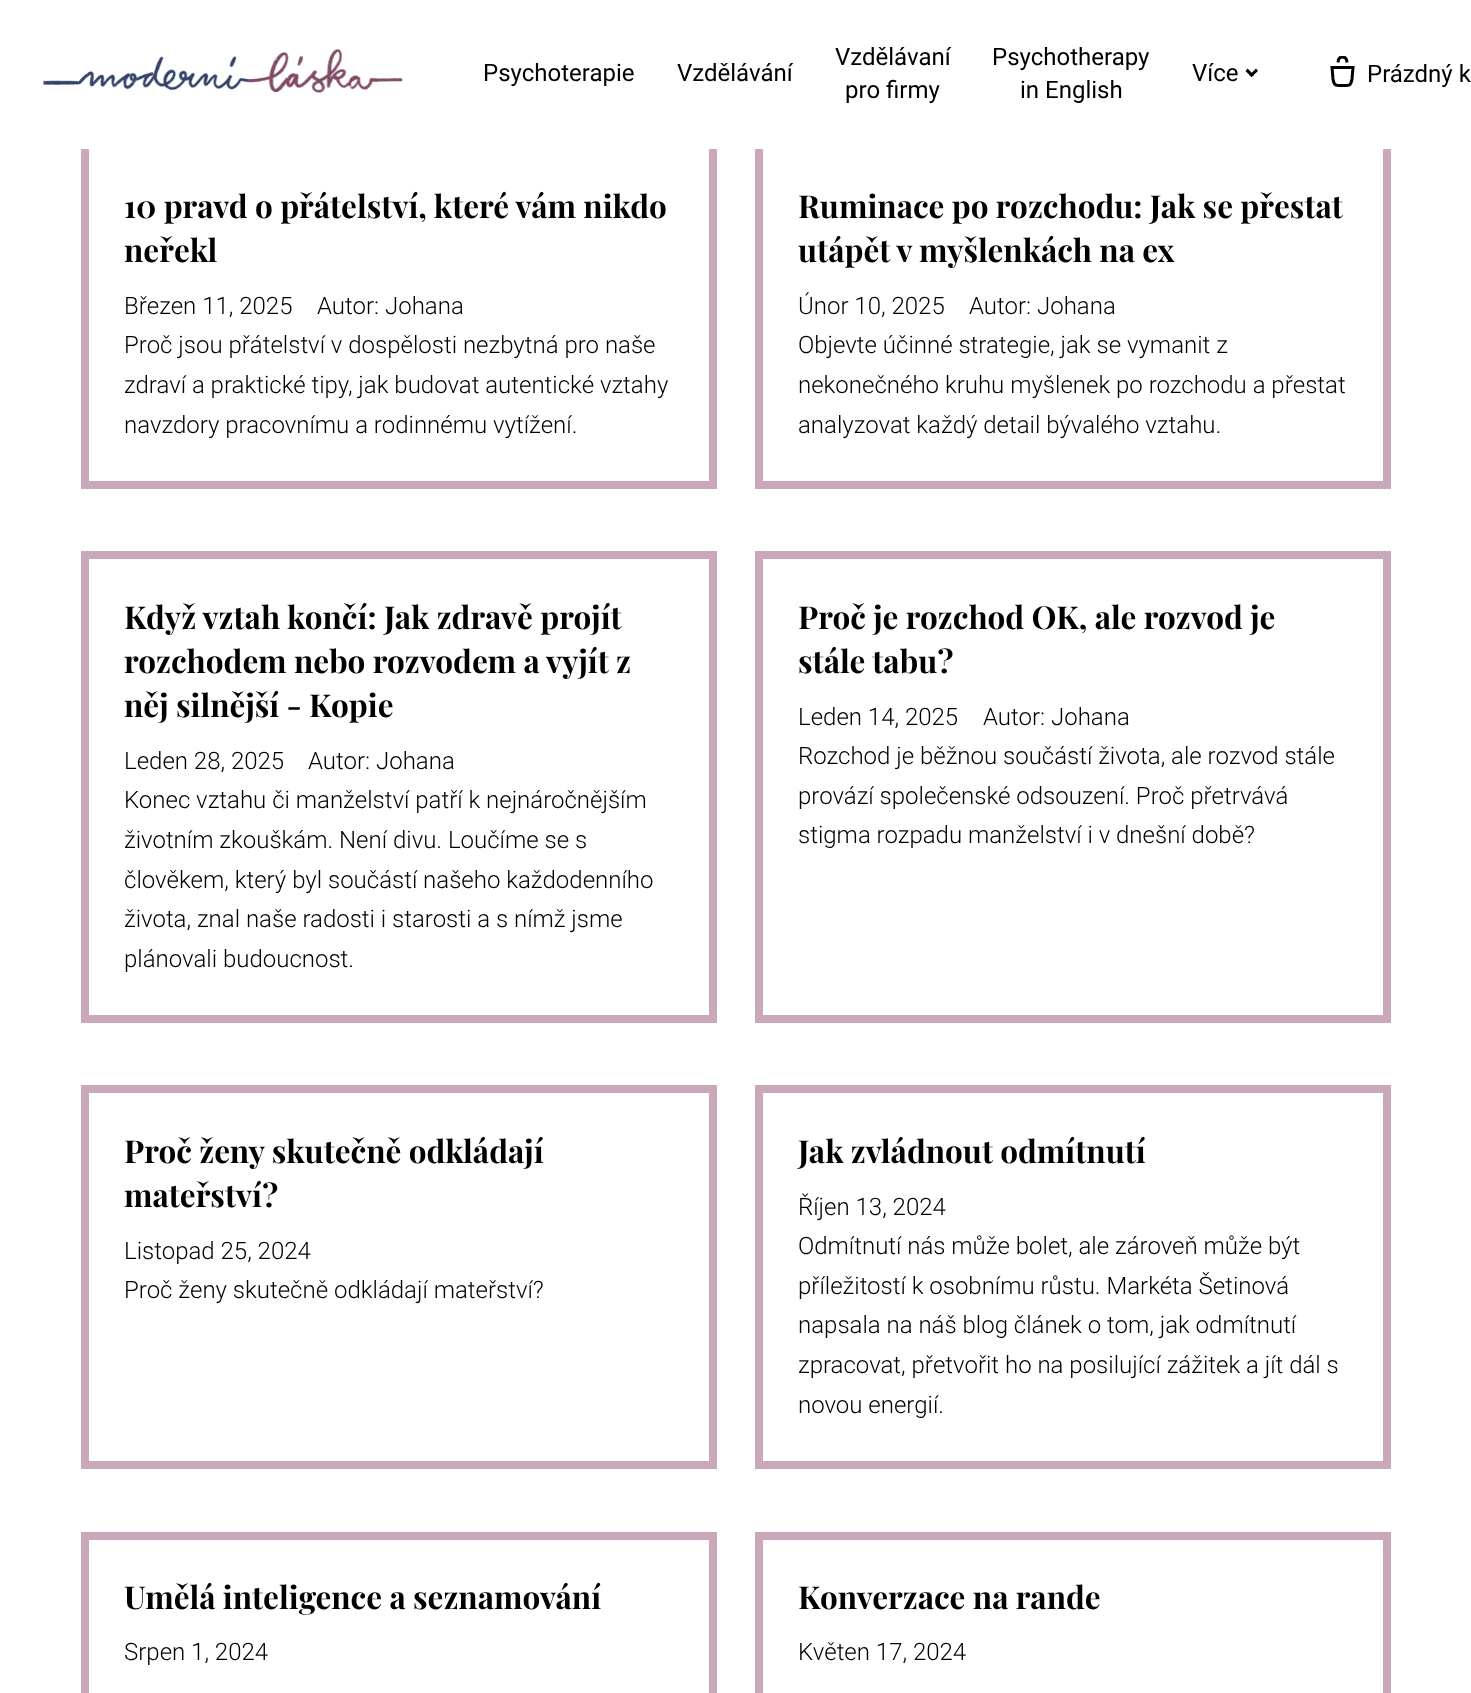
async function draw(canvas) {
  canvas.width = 1471
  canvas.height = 1693
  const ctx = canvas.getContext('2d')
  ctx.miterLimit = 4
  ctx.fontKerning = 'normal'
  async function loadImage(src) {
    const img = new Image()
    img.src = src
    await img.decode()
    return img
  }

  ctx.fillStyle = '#fff'
  ctx.fillRect(0, 0, 1471, 1693)
  ctx.strokeStyle = '#caa8ba'
  ctx.lineWidth = 8
  ctx.strokeRect(85, 144, 628, 341)
  ctx.strokeRect(759, 144, 628, 341)
  ctx.fillRect(81, 140, 1310, 9)
  ctx.drawImage(await loadImage('image0.png'), 43, 49, 360, 44)
  ctx.font = '24px Roboto'
  ctx.fillStyle = '#000'
  ctx.fillText('Psychoterapie', 483, 81)
  ctx.fillText('Vzdělávání', 677, 81)
  ctx.fillText('Vzdělávaní', 835, 65)
  ctx.fillText('pro firmy', 845, 98)
  ctx.fillText('Psychotherapy', 992, 65)
  ctx.fillText('in English', 1020, 98)
  ctx.fillText('Více', 1192, 81)
  ctx.beginPath()
  ctx.moveTo(1256, 68.5)
  ctx.lineTo(1258, 71)
  ctx.lineTo(1251.5, 77)
  ctx.lineTo(1249.5, 75)
  ctx.closePath()
  ctx.fill()
  ctx.beginPath()
  ctx.moveTo(1247.5, 68.5)
  ctx.lineTo(1254, 75)
  ctx.lineTo(1251.5, 77)
  ctx.lineTo(1245.5, 71)
  ctx.closePath()
  ctx.fill()
  ctx.save()
  ctx.beginPath()
  ctx.rect(1329, 56, 27, 31)
  ctx.clip()
  ctx.beginPath()
  ctx.moveTo(1347, 62.5)
  ctx.lineTo(1346.5, 59.5)
  ctx.bezierCurveTo(1345, 56, 1340, 56, 1338.5, 59.5)
  ctx.lineTo(1338, 62.5)
  ctx.strokeStyle = '#000'
  ctx.lineWidth = 3
  ctx.stroke()
  ctx.restore()
  ctx.beginPath()
  ctx.moveTo(1353, 67.5)
  ctx.lineTo(1352, 79)
  ctx.bezierCurveTo(1351, 86, 1349, 85.5, 1342.5, 85.5)
  ctx.bezierCurveTo(1336, 85.5, 1334, 86, 1333, 79)
  ctx.lineTo(1332, 67.5)
  ctx.closePath()
  ctx.strokeStyle = '#000'
  ctx.lineWidth = 3
  ctx.stroke()
  ctx.fillText('Prázdný k', 1367, 82)
  ctx.font = 'bold 31.5px Playfair Display'
  ctx.fillText('10 pravd o přátelství, které vám nikdo', 124, 218)
  ctx.fillText('neřekl', 124, 262)
  ctx.font = '300 24px Roboto'
  ctx.fillText('Březen 11, 2025', 124, 314)
  ctx.fillText('Autor: Johana', 317, 314)
  ctx.fillText('Proč jsou přátelství v dospělosti nezbytná pro naše', 124, 353)
  ctx.fillText('zdraví a praktické tipy, jak budovat autentické vztahy', 124, 393)
  ctx.fillText('navzdory pracovnímu a rodinnému vytížení.', 124, 433)
  ctx.font = 'bold 31.5px Playfair Display'
  ctx.fillText('Ruminace po rozchodu: Jak se přestat', 798, 218)
  ctx.fillText('utápět v myšlenkách na ex', 798, 262)
  ctx.font = '300 24px Roboto'
  ctx.fillText('Únor 10, 2025', 798, 314)
  ctx.fillText('Autor: Johana', 969, 314)
  ctx.fillText('Objevte účinné strategie, jak se vymanit z', 798, 353)
  ctx.fillText('nekonečného kruhu myšlenek po rozchodu a přestat', 798, 393)
  ctx.fillText('analyzovat každý detail bývalého vztahu.', 798, 433)
  ctx.strokeStyle = '#caa8ba'
  ctx.lineWidth = 8
  ctx.strokeRect(85, 555, 628, 464)
  ctx.font = 'bold 31.5px Playfair Display'
  ctx.fillText('Když vztah končí: Jak zdravě projít', 124, 629)
  ctx.fillText('rozchodem nebo rozvodem a vyjít z', 124, 673)
  ctx.fillText('něj silnější - Kopie', 124, 717)
  ctx.font = '300 24px Roboto'
  ctx.fillText('Leden 28, 2025', 124, 769)
  ctx.fillText('Autor: Johana', 308, 769)
  ctx.fillText('Konec vztahu či manželství patří k nejnáročnějším', 124, 808)
  ctx.fillText('životním zkouškám. Není divu. Loučíme se s', 124, 848)
  ctx.fillText('člověkem, který byl součástí našeho každodenního', 124, 888)
  ctx.fillText('života, znal naše radosti i starosti a s nímž jsme', 124, 927)
  ctx.fillText('plánovali budoucnost.', 124, 967)
  ctx.strokeRect(759, 555, 628, 464)
  ctx.font = 'bold 31.5px Playfair Display'
  ctx.fillText('Proč je rozchod OK, ale rozvod je', 798, 629)
  ctx.fillText('stále tabu?', 798, 673)
  ctx.font = '300 24px Roboto'
  ctx.fillText('Leden 14, 2025', 798, 725)
  ctx.fillText('Autor: Johana', 983, 725)
  ctx.fillText('Rozchod je běžnou součástí života, ale rozvod stále', 798, 764)
  ctx.fillText('provází společenské odsouzení. Proč přetrvává', 798, 804)
  ctx.fillText('stigma rozpadu manželství i v dnešní době?', 798, 843)
  ctx.strokeRect(85, 1089, 628, 376)
  ctx.font = 'bold 31.5px Playfair Display'
  ctx.fillText('Proč ženy skutečně odkládají', 124, 1163)
  ctx.fillText('mateřství?', 124, 1207)
  ctx.font = '300 24px Roboto'
  ctx.fillText('Listopad 25, 2024', 124, 1259)
  ctx.fillText('Proč ženy skutečně odkládají mateřství?', 124, 1298)
  ctx.strokeRect(759, 1089, 628, 376)
  ctx.font = 'bold 31.5px Playfair Display'
  ctx.fillText('Jak zvládnout odmítnutí', 798, 1163)
  ctx.font = '300 24px Roboto'
  ctx.fillText('Říjen 13, 2024', 798, 1215)
  ctx.fillText('Odmítnutí nás může bolet, ale zároveň může být', 798, 1254)
  ctx.fillText('příležitostí k osobnímu růstu. Markéta Šetinová', 798, 1294)
  ctx.fillText('napsala na náš blog článek o tom, jak odmítnutí', 798, 1333)
  ctx.fillText('zpracovat, přetvořit ho na posilující zážitek a jít dál s', 798, 1373)
  ctx.fillText('novou energií.', 798, 1413)
  ctx.strokeRect(85, 1536, 628, 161)
  ctx.font = 'bold 31.5px Playfair Display'
  ctx.fillText('Umělá inteligence a seznamování', 124, 1609)
  ctx.font = '300 24px Roboto'
  ctx.fillText('Srpen 1, 2024', 124, 1660)
  ctx.strokeRect(759, 1536, 628, 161)
  ctx.font = 'bold 31.5px Playfair Display'
  ctx.fillText('Konverzace na rande', 798, 1609)
  ctx.font = '300 24px Roboto'
  ctx.fillText('Květen 17, 2024', 798, 1660)
}

draw(document.querySelector('canvas'))
